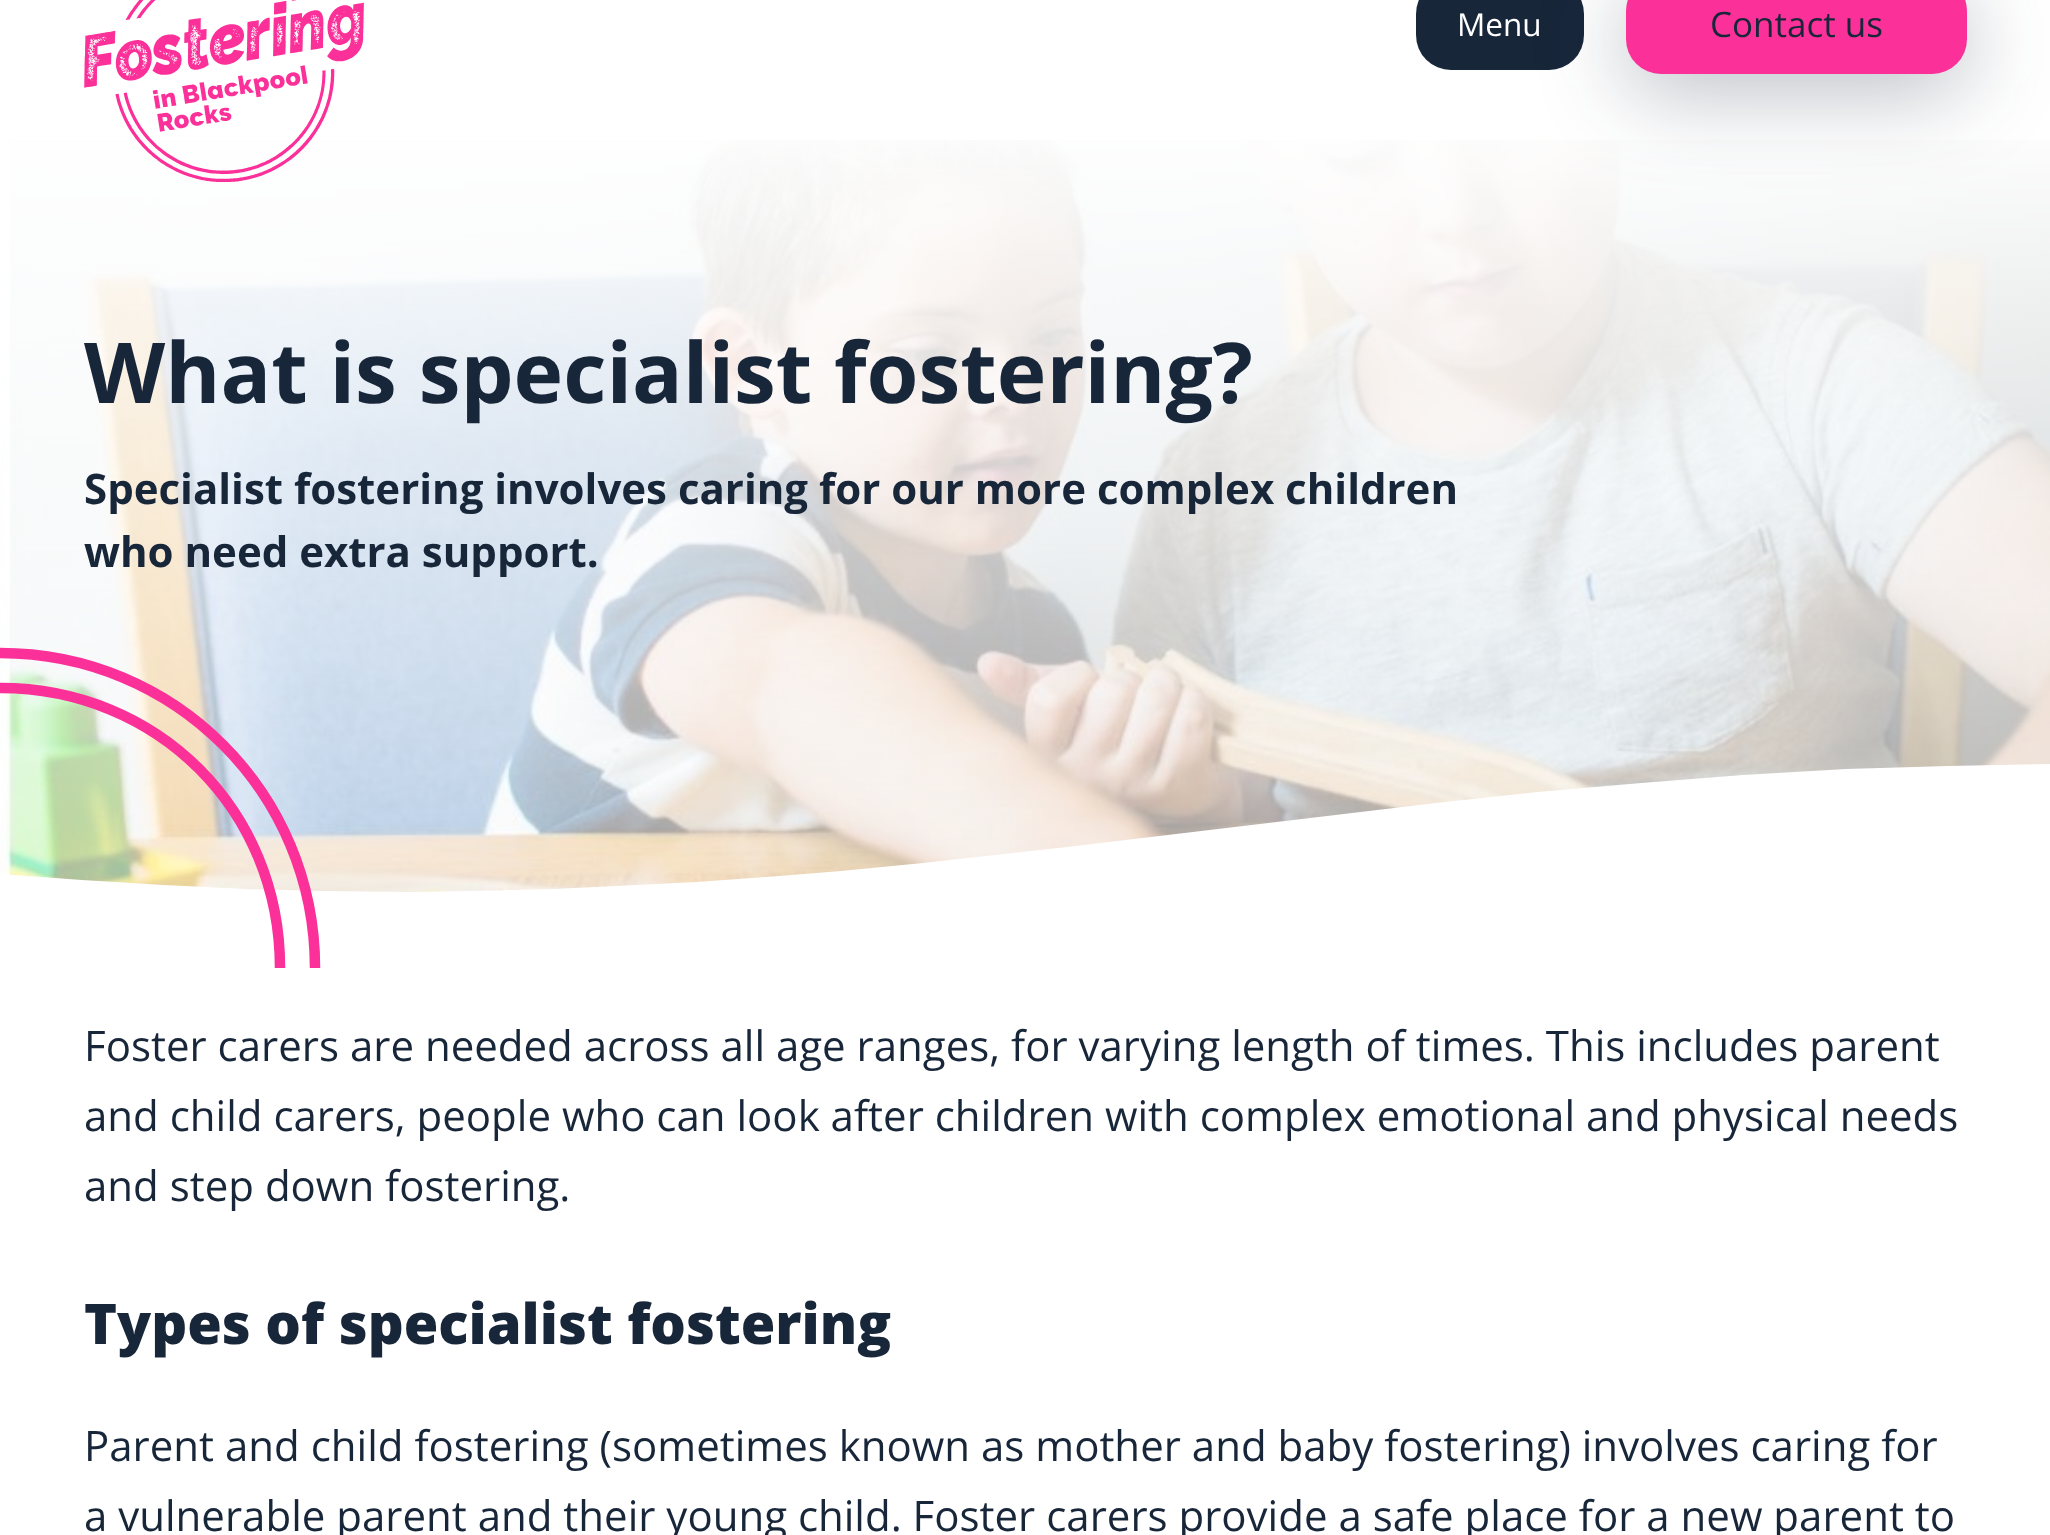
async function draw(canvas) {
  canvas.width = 2050
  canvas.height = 1535
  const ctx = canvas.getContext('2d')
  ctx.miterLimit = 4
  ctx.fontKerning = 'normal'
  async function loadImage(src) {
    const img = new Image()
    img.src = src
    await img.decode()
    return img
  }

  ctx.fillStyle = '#fff'
  ctx.fillRect(0, 0, 2050, 1535)
  ctx.drawImage(await loadImage('image1.png'), 0, 140, 2050, 752)
  ctx.drawImage(await loadImage('image0.png'), 84, 0, 280, 182)
  ctx.fillStyle = '#18263a'
  ctx.beginPath()
  ctx.roundRect(1416, -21, 168, 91, 35)
  ctx.fill()
  ctx.font = '31.5px Open Sans'
  ctx.fillStyle = '#fff'
  ctx.fillText('Menu', 1457, 36)
  ctx.fillStyle = '#18263a4d'
  ctx.filter = 'blur(44px)'
  ctx.beginPath()
  ctx.roundRect(1626, -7, 341, 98, 35)
  ctx.fill()
  ctx.filter = 'none'
  ctx.fillStyle = '#fb3099'
  ctx.beginPath()
  ctx.roundRect(1626, -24, 341, 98, 35)
  ctx.fill()
  ctx.font = '35px Open Sans'
  ctx.fillStyle = '#18263a'
  ctx.fillText('Contact us', 1710, 37)
  ctx.font = 'bold 84px Open Sans'
  ctx.fillText('What is specialist fostering?', 84, 403)
  ctx.font = 'bold 42px Open Sans'
  ctx.fillText('Specialist fostering involves caring for our more complex children', 84, 504)
  ctx.fillText('who need extra support.', 84, 567)
  ctx.fillStyle = '#fff'
  ctx.beginPath()
  ctx.moveTo(0, 874)
  ctx.lineTo(0, 898)
  ctx.lineTo(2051, 898)
  ctx.lineTo(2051, 764)
  ctx.lineTo(1948, 766)
  ctx.lineTo(1846, 769)
  ctx.lineTo(1743, 775)
  ctx.lineTo(1641, 783)
  ctx.lineTo(1538, 792)
  ctx.lineTo(1436, 803)
  ctx.lineTo(1067, 847)
  ctx.lineTo(923, 863)
  ctx.lineTo(841, 871)
  ctx.lineTo(779, 876)
  ctx.lineTo(697, 882)
  ctx.lineTo(636, 885)
  ctx.lineTo(554, 889)
  ctx.lineTo(472, 891)
  ctx.lineTo(410, 892)
  ctx.lineTo(328, 891)
  ctx.lineTo(246, 889)
  ctx.lineTo(164, 885)
  ctx.lineTo(82, 880)
  ctx.closePath()
  ctx.fill()
  ctx.beginPath()
  ctx.moveTo(0, 653)
  ctx.bezierCurveTo(175, 653, 315, 793, 315, 968)
  ctx.strokeStyle = '#fb3099'
  ctx.lineWidth = 10.5
  ctx.stroke()
  ctx.beginPath()
  ctx.moveTo(0, 688)
  ctx.bezierCurveTo(157.5, 688, 280, 810, 280, 968)
  ctx.stroke()
  ctx.font = '42px Open Sans'
  ctx.fillStyle = '#18263a'
  ctx.fillText('Foster carers are needed across all age ranges, for varying length of times. This includes parent', 84, 1061)
  ctx.fillText('and child carers, people who can look after children with complex emotional and physical needs', 84, 1131)
  ctx.fillText('and step down fostering.', 84, 1201)
  ctx.font = '800 56px Open Sans'
  ctx.fillText('Types of specialist fostering', 84, 1344)
  ctx.font = '42px Open Sans'
  ctx.fillText('Parent and child fostering (sometimes known as mother and baby fostering) involves caring for', 84, 1461)
  ctx.fillText('a vulnerable parent and their young child. Foster carers provide a safe place for a new parent to', 84, 1531)
}

draw(document.querySelector('canvas'))
